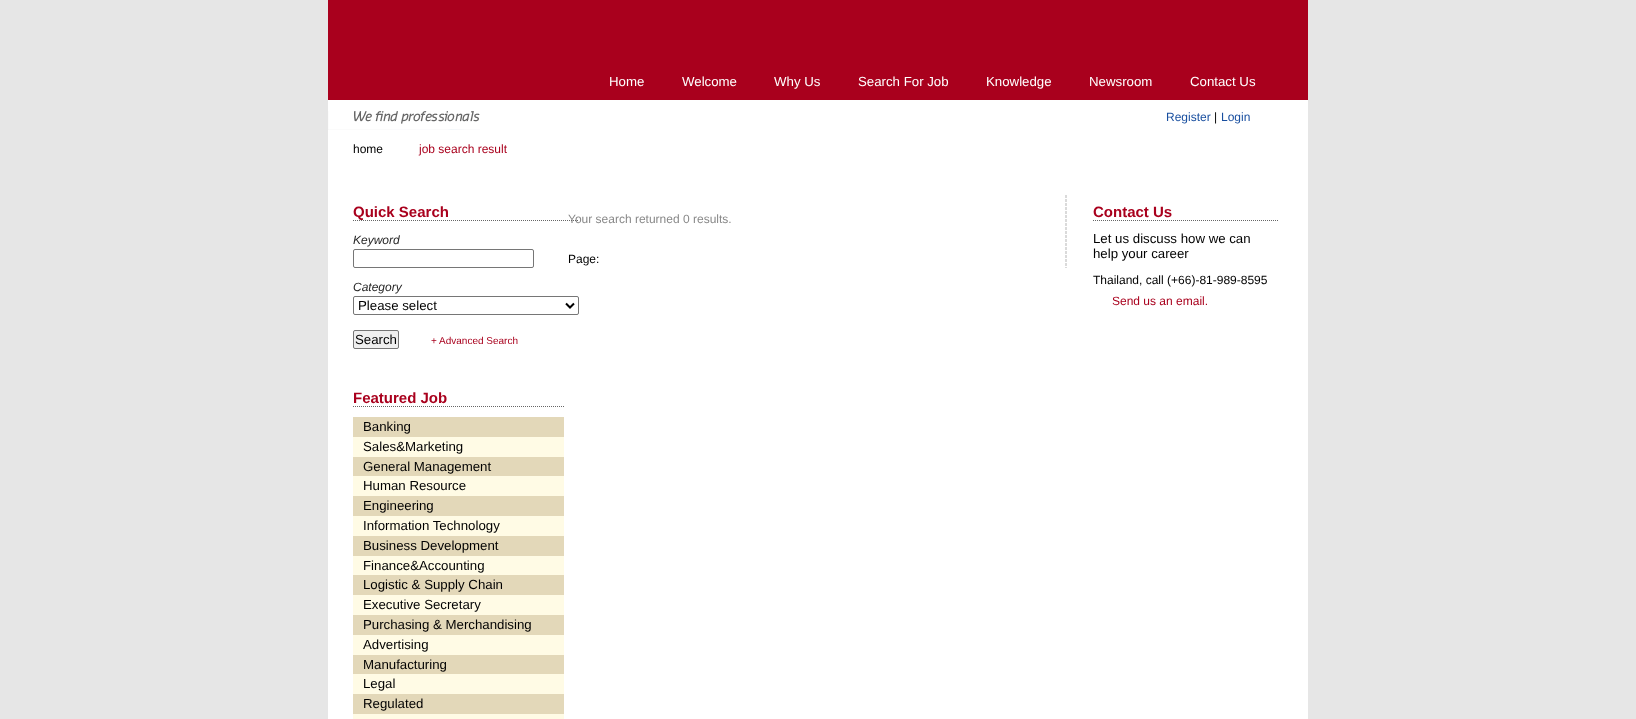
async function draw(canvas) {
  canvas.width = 1636
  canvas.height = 719
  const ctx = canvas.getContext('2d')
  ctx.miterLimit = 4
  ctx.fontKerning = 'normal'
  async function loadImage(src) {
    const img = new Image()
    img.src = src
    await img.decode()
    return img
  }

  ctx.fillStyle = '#e6e6e6'
  ctx.fillRect(0, 0, 1636, 719)
  ctx.fillStyle = '#fff'
  ctx.fillRect(328, 100, 980, 619)
  ctx.fillStyle = '#a9001d'
  ctx.fillRect(328, 0, 980, 100)
  ctx.font = '13.25px Liberation Sans'
  ctx.fillStyle = '#fff'
  ctx.fillText('Home', 609, 86)
  ctx.fillText('Welcome', 682, 86)
  ctx.fillText('Why Us', 774, 86)
  ctx.fillText('Search For Job', 858, 86)
  ctx.fillText('Knowledge', 986, 86)
  ctx.fillText('Newsroom', 1089, 86)
  ctx.fillText('Contact Us', 1190, 86)
  ctx.drawImage(await loadImage('image0.png'), 328, 111, 152, 19)
  ctx.font = '12px Liberation Sans'
  ctx.fillStyle = '#184e9f'
  ctx.fillText('Register', 1166, 121)
  ctx.fillStyle = '#000'
  ctx.fillText('|', 1214, 121)
  ctx.fillStyle = '#184e9f'
  ctx.fillText('Login', 1221, 121)
  ctx.fillStyle = '#000'
  ctx.fillText('home', 353, 153)
  ctx.fillStyle = '#a9001d'
  ctx.fillText('job search result', 419, 153)
  ctx.font = 'bold 15px Liberation Sans'
  ctx.fillText('Quick Search', 353, 217)
  ctx.font = '12px Liberation Sans'
  ctx.fillStyle = '#898989'
  ctx.fillText('Your search returned 0 results.', 568, 223)
  ctx.beginPath()
  ctx.moveTo(353, 220.5)
  ctx.lineTo(579, 220.5)
  ctx.strokeStyle = '#666'
  ctx.setLineDash([1, 1])
  ctx.stroke()
  ctx.font = 'italic 12px Liberation Sans'
  ctx.fillStyle = '#262626'
  ctx.fillText('Keyword', 353, 244)
  ctx.beginPath()
  ctx.roundRect(353.5, 249.5, 180, 18, 1.5)
  ctx.strokeStyle = '#767676'
  ctx.setLineDash([])
  ctx.stroke()
  ctx.fillText('Category', 353, 291)
  ctx.beginPath()
  ctx.roundRect(353.5, 296.5, 225, 18, 1.5)
  ctx.stroke()
  ctx.beginPath()
  ctx.moveTo(566, 303.5)
  ctx.lineTo(570, 307.5)
  ctx.lineTo(574, 303.5)
  ctx.strokeStyle = '#000'
  ctx.lineWidth = 2
  ctx.stroke()
  ctx.font = '13.25px Liberation Sans'
  ctx.fillStyle = '#000'
  ctx.fillText('Please select', 358, 310)
  ctx.fillStyle = '#efefef'
  ctx.beginPath()
  ctx.roundRect(353.5, 330.5, 45, 18, 1.5)
  ctx.fill()
  ctx.strokeStyle = '#767676'
  ctx.lineWidth = 1
  ctx.stroke()
  ctx.fillStyle = '#000'
  ctx.fillText('Search', 355, 344)
  ctx.font = '10px Liberation Sans'
  ctx.fillStyle = '#a9001d'
  ctx.fillText('+ Advanced Search', 431, 344)
  ctx.font = 'bold 15px Liberation Sans'
  ctx.fillText('Featured Job', 353, 403)
  ctx.beginPath()
  ctx.moveTo(353, 406.5)
  ctx.lineTo(564, 406.5)
  ctx.strokeStyle = '#666'
  ctx.setLineDash([1, 1])
  ctx.stroke()
  ctx.fillStyle = '#e3d8b9'
  ctx.fillRect(353, 417, 211, 20)
  ctx.font = '13.25px Liberation Sans'
  ctx.fillStyle = '#000'
  ctx.fillText('Banking', 363, 431)
  ctx.fillStyle = '#fffbe5'
  ctx.fillRect(353, 437, 211, 20)
  ctx.fillStyle = '#000'
  ctx.fillText('Sales&Marketing', 363, 451)
  ctx.fillStyle = '#e3d8b9'
  ctx.fillRect(353, 457, 211, 19)
  ctx.fillStyle = '#000'
  ctx.fillText('General Management', 363, 471)
  ctx.fillStyle = '#fffbe5'
  ctx.fillRect(353, 476, 211, 20)
  ctx.fillStyle = '#000'
  ctx.fillText('Human Resource', 363, 490)
  ctx.fillStyle = '#e3d8b9'
  ctx.fillRect(353, 496, 211, 20)
  ctx.fillStyle = '#000'
  ctx.fillText('Engineering', 363, 510)
  ctx.fillStyle = '#fffbe5'
  ctx.fillRect(353, 516, 211, 20)
  ctx.fillStyle = '#000'
  ctx.fillText('Information Technology', 363, 530)
  ctx.fillStyle = '#e3d8b9'
  ctx.fillRect(353, 536, 211, 20)
  ctx.fillStyle = '#000'
  ctx.fillText('Business Development', 363, 550)
  ctx.fillStyle = '#fffbe5'
  ctx.fillRect(353, 556, 211, 19)
  ctx.fillStyle = '#000'
  ctx.fillText('Finance&Accounting', 363, 570)
  ctx.fillStyle = '#e3d8b9'
  ctx.fillRect(353, 575, 211, 20)
  ctx.fillStyle = '#000'
  ctx.fillText('Logistic & Supply Chain', 363, 589)
  ctx.fillStyle = '#fffbe5'
  ctx.fillRect(353, 595, 211, 20)
  ctx.fillStyle = '#000'
  ctx.fillText('Executive Secretary', 363, 609)
  ctx.fillStyle = '#e3d8b9'
  ctx.fillRect(353, 615, 211, 20)
  ctx.fillStyle = '#000'
  ctx.fillText('Purchasing & Merchandising', 363, 629)
  ctx.fillStyle = '#fffbe5'
  ctx.fillRect(353, 635, 211, 20)
  ctx.fillStyle = '#000'
  ctx.fillText('Advertising', 363, 649)
  ctx.fillStyle = '#e3d8b9'
  ctx.fillRect(353, 655, 211, 19)
  ctx.fillStyle = '#000'
  ctx.fillText('Manufacturing', 363, 669)
  ctx.fillStyle = '#fffbe5'
  ctx.fillRect(353, 674, 211, 20)
  ctx.fillStyle = '#000'
  ctx.fillText('Legal', 363, 688)
  ctx.fillStyle = '#e3d8b9'
  ctx.fillRect(353, 694, 211, 20)
  ctx.fillStyle = '#000'
  ctx.fillText('Regulated', 363, 708)
  ctx.fillStyle = '#fffbe5'
  ctx.fillRect(353, 714, 211, 5)
  ctx.drawImage(await loadImage('image1.png'), 1065, 195, 2, 73)
  ctx.font = '12px Liberation Sans'
  ctx.fillStyle = '#000'
  ctx.fillText('Page:', 568, 263)
  ctx.font = 'bold 15px Liberation Sans'
  ctx.fillStyle = '#a9001d'
  ctx.fillText('Contact Us', 1093, 217)
  ctx.beginPath()
  ctx.moveTo(1093, 220.5)
  ctx.lineTo(1278, 220.5)
  ctx.stroke()
  ctx.font = '13.25px Liberation Sans'
  ctx.fillStyle = '#000'
  ctx.fillText('Let us discuss how we can', 1093, 243)
  ctx.fillText('help your career', 1093, 258)
  ctx.font = '12px Liberation Sans'
  ctx.fillText('Thailand, call (+66)-81-989-8595', 1093, 284)
  ctx.fillStyle = '#a9001d'
  ctx.fillText('Send us an email.', 1112, 305)
}

draw(document.querySelector('canvas'))
